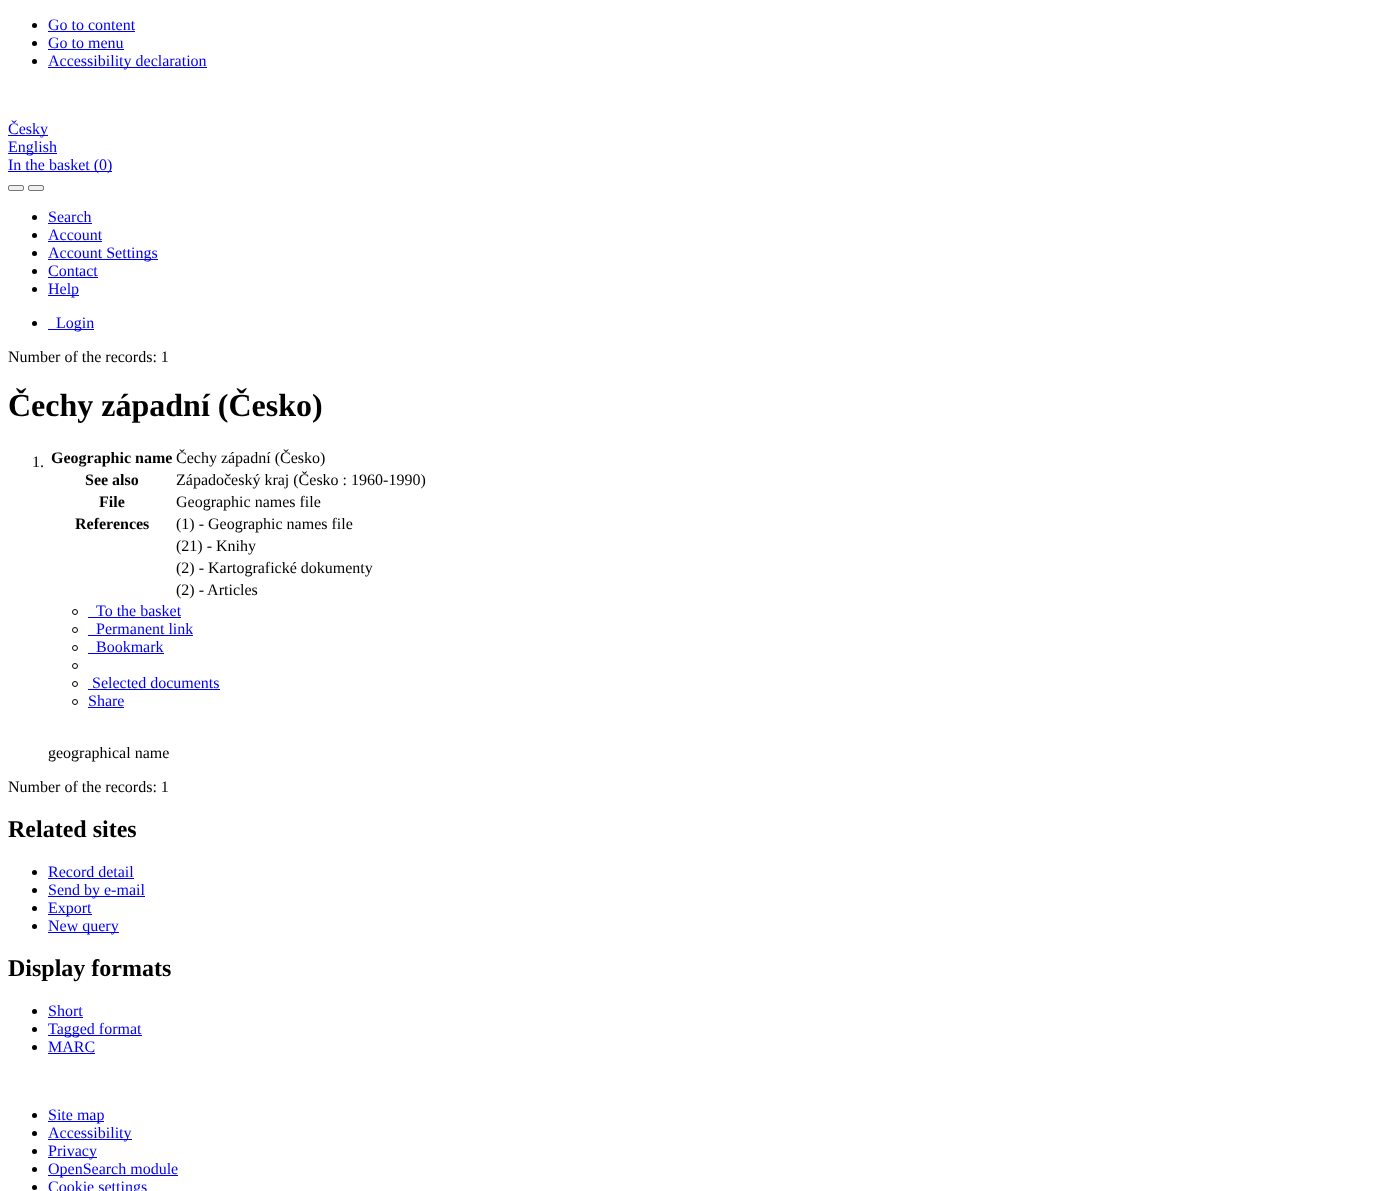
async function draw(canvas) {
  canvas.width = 1374
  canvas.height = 1191
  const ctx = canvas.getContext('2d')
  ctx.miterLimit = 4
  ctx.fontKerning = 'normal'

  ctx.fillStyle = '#fff'
  ctx.fillRect(0, 0, 1374, 1191)
  ctx.fillStyle = '#000'
  ctx.beginPath()
  ctx.arc(34.5, 25.5, 2.5, 0, 2 * Math.PI)
  ctx.fill()
  ctx.font = '16px Liberation Serif'
  ctx.fillStyle = '#00e'
  ctx.fillText('Go to content', 48, 30)
  ctx.fillRect(48, 31, 87, 1)
  ctx.fillStyle = '#000'
  ctx.beginPath()
  ctx.arc(34.5, 43.5, 2.5, 0, 2 * Math.PI)
  ctx.fill()
  ctx.fillStyle = '#00e'
  ctx.fillText('Go to menu', 48, 48)
  ctx.fillRect(48, 49, 76, 1)
  ctx.fillStyle = '#000'
  ctx.beginPath()
  ctx.arc(34.5, 61.5, 2.5, 0, 2 * Math.PI)
  ctx.fill()
  ctx.fillStyle = '#00e'
  ctx.fillRect(48, 67, 159, 1)
  ctx.fillText('Accessibility declaration', 48, 66)
  ctx.fillRect(8, 135, 40, 1)
  ctx.fillText('Česky', 8, 134)
  ctx.fillRect(8, 153, 49, 1)
  ctx.fillText('English', 8, 152)
  ctx.fillRect(8, 171, 104, 1)
  ctx.fillText('In the basket (0)', 8, 170)
  ctx.fillStyle = '#efefef'
  ctx.beginPath()
  ctx.roundRect(8.5, 185.5, 15, 5, 1.5)
  ctx.fill()
  ctx.strokeStyle = '#767676'
  ctx.stroke()
  ctx.beginPath()
  ctx.roundRect(28.5, 185.5, 15, 5, 1.5)
  ctx.fill()
  ctx.stroke()
  ctx.fillStyle = '#000'
  ctx.beginPath()
  ctx.arc(34.5, 217.5, 2.5, 0, 2 * Math.PI)
  ctx.fill()
  ctx.fillStyle = '#00e'
  ctx.fillText('Search', 48, 222)
  ctx.fillRect(48, 223, 44, 1)
  ctx.fillStyle = '#000'
  ctx.beginPath()
  ctx.arc(34.5, 235.5, 2.5, 0, 2 * Math.PI)
  ctx.fill()
  ctx.fillStyle = '#00e'
  ctx.fillText('Account', 48, 240)
  ctx.fillRect(48, 241, 54, 1)
  ctx.fillStyle = '#000'
  ctx.beginPath()
  ctx.arc(34.5, 253.5, 2.5, 0, 2 * Math.PI)
  ctx.fill()
  ctx.fillStyle = '#00e'
  ctx.fillRect(48, 259, 110, 1)
  ctx.fillText('Account Settings', 48, 258)
  ctx.fillStyle = '#000'
  ctx.beginPath()
  ctx.arc(34.5, 271.5, 2.5, 0, 2 * Math.PI)
  ctx.fill()
  ctx.fillStyle = '#00e'
  ctx.fillText('Contact', 48, 276)
  ctx.fillRect(48, 277, 50, 1)
  ctx.fillStyle = '#000'
  ctx.beginPath()
  ctx.arc(34.5, 289.5, 2.5, 0, 2 * Math.PI)
  ctx.fill()
  ctx.fillStyle = '#00e'
  ctx.fillRect(48, 295, 31, 1)
  ctx.fillText('Help', 48, 294)
  ctx.fillStyle = '#000'
  ctx.beginPath()
  ctx.arc(34.5, 323.5, 2.5, 0, 2 * Math.PI)
  ctx.fill()
  ctx.fillStyle = '#00e'
  ctx.fillRect(48, 329, 46, 1)
  ctx.fillText('Login', 56, 328)
  ctx.fillStyle = '#000'
  ctx.fillText('Number of the records: 1', 8, 362)
  ctx.font = 'bold 32px Liberation Serif'
  ctx.fillText('Čechy západní (Česko)', 8, 416)
  ctx.font = '16px Liberation Serif'
  ctx.fillText('1.', 32, 467)
  ctx.font = 'bold 16px Liberation Serif'
  ctx.fillText('Geographic name', 51, 463)
  ctx.font = '16px Liberation Serif'
  ctx.fillText('Čechy západní (Česko)', 176, 463)
  ctx.font = 'bold 16px Liberation Serif'
  ctx.fillText('See also', 85, 485)
  ctx.font = '16px Liberation Serif'
  ctx.fillText('Západočeský kraj (Česko : 1960-1990)', 176, 485)
  ctx.font = 'bold 16px Liberation Serif'
  ctx.fillText('File', 99, 507)
  ctx.font = '16px Liberation Serif'
  ctx.fillText('Geographic names file', 176, 507)
  ctx.font = 'bold 16px Liberation Serif'
  ctx.fillText('References', 75, 529)
  ctx.font = '16px Liberation Serif'
  ctx.fillText('(1) - Geographic names file', 176, 529)
  ctx.fillText('(21) - Knihy', 176, 551)
  ctx.fillText('(2) - Kartografické dokumenty', 176, 573)
  ctx.fillText('(2) - Articles', 176, 595)
  ctx.beginPath()
  ctx.arc(75, 612, 2.5, 0, 2 * Math.PI)
  ctx.strokeStyle = '#000'
  ctx.stroke()
  ctx.fillStyle = '#00e'
  ctx.fillText('To the basket', 96, 616)
  ctx.fillRect(88, 617, 93, 1)
  ctx.beginPath()
  ctx.arc(75, 630, 2.5, 0, 2 * Math.PI)
  ctx.stroke()
  ctx.fillText('Permanent link', 96, 634)
  ctx.fillRect(88, 635, 105, 1)
  ctx.beginPath()
  ctx.arc(75, 648, 2.5, 0, 2 * Math.PI)
  ctx.stroke()
  ctx.fillText('Bookmark', 96, 652)
  ctx.fillRect(88, 653, 76, 1)
  ctx.beginPath()
  ctx.arc(75, 666, 2.5, 0, 2 * Math.PI)
  ctx.stroke()
  ctx.beginPath()
  ctx.arc(75, 684, 2.5, 0, 2 * Math.PI)
  ctx.stroke()
  ctx.fillText('Selected documents', 92, 688)
  ctx.fillRect(88, 689, 132, 1)
  ctx.beginPath()
  ctx.arc(75, 702, 2.5, 0, 2 * Math.PI)
  ctx.stroke()
  ctx.fillText('Share', 88, 706)
  ctx.fillRect(88, 707, 36, 1)
  ctx.fillStyle = '#000'
  ctx.fillText('geographical name', 48, 758)
  ctx.fillText('Number of the records: 1', 8, 792)
  ctx.font = 'bold 24px Liberation Serif'
  ctx.fillText('Related sites', 8, 837)
  ctx.beginPath()
  ctx.arc(34.5, 872.5, 2.5, 0, 2 * Math.PI)
  ctx.fill()
  ctx.font = '16px Liberation Serif'
  ctx.fillStyle = '#00e'
  ctx.fillText('Record detail', 48, 877)
  ctx.fillRect(48, 878, 86, 1)
  ctx.fillStyle = '#000'
  ctx.beginPath()
  ctx.arc(34.5, 890.5, 2.5, 0, 2 * Math.PI)
  ctx.fill()
  ctx.fillStyle = '#00e'
  ctx.fillRect(48, 896, 97, 1)
  ctx.fillText('Send by e-mail', 48, 895)
  ctx.fillStyle = '#000'
  ctx.beginPath()
  ctx.arc(34.5, 908.5, 2.5, 0, 2 * Math.PI)
  ctx.fill()
  ctx.fillStyle = '#00e'
  ctx.fillRect(48, 914, 44, 1)
  ctx.fillText('Export', 48, 913)
  ctx.fillStyle = '#000'
  ctx.beginPath()
  ctx.arc(34.5, 926.5, 2.5, 0, 2 * Math.PI)
  ctx.fill()
  ctx.fillStyle = '#00e'
  ctx.fillRect(48, 932, 71, 1)
  ctx.fillText('New query', 48, 931)
  ctx.font = 'bold 24px Liberation Serif'
  ctx.fillStyle = '#000'
  ctx.fillText('Display formats', 8, 976)
  ctx.beginPath()
  ctx.arc(34.5, 1011.5, 2.5, 0, 2 * Math.PI)
  ctx.fill()
  ctx.font = '16px Liberation Serif'
  ctx.fillStyle = '#00e'
  ctx.fillText('Short', 48, 1016)
  ctx.fillRect(48, 1017, 35, 1)
  ctx.fillStyle = '#000'
  ctx.beginPath()
  ctx.arc(34.5, 1029.5, 2.5, 0, 2 * Math.PI)
  ctx.fill()
  ctx.fillStyle = '#00e'
  ctx.fillRect(48, 1035, 94, 1)
  ctx.fillText('Tagged format', 48, 1034)
  ctx.fillStyle = '#000'
  ctx.beginPath()
  ctx.arc(34.5, 1047.5, 2.5, 0, 2 * Math.PI)
  ctx.fill()
  ctx.fillStyle = '#00e'
  ctx.fillText('MARC', 48, 1052)
  ctx.fillRect(48, 1053, 47, 1)
  ctx.fillStyle = '#000'
  ctx.beginPath()
  ctx.arc(34.5, 1115.5, 2.5, 0, 2 * Math.PI)
  ctx.fill()
  ctx.fillStyle = '#00e'
  ctx.fillRect(48, 1121, 56, 1)
  ctx.fillText('Site map', 48, 1120)
  ctx.fillStyle = '#000'
  ctx.beginPath()
  ctx.arc(34.5, 1133.5, 2.5, 0, 2 * Math.PI)
  ctx.fill()
  ctx.fillStyle = '#00e'
  ctx.fillRect(48, 1139, 84, 1)
  ctx.fillText('Accessibility', 48, 1138)
  ctx.fillStyle = '#000'
  ctx.beginPath()
  ctx.arc(34.5, 1151.5, 2.5, 0, 2 * Math.PI)
  ctx.fill()
  ctx.fillStyle = '#00e'
  ctx.fillRect(48, 1157, 49, 1)
  ctx.fillText('Privacy', 48, 1156)
  ctx.fillStyle = '#000'
  ctx.beginPath()
  ctx.arc(34.5, 1169.5, 2.5, 0, 2 * Math.PI)
  ctx.fill()
  ctx.fillStyle = '#00e'
  ctx.fillRect(48, 1175, 130, 1)
  ctx.fillText('OpenSearch module', 48, 1174)
  ctx.fillStyle = '#000'
  ctx.beginPath()
  ctx.arc(34.5, 1187.5, 2.5, 0, 2 * Math.PI)
  ctx.fill()
  ctx.fillStyle = '#00e'
  ctx.fillText('Cookie settings', 48, 1192)
}

draw(document.querySelector('canvas'))
